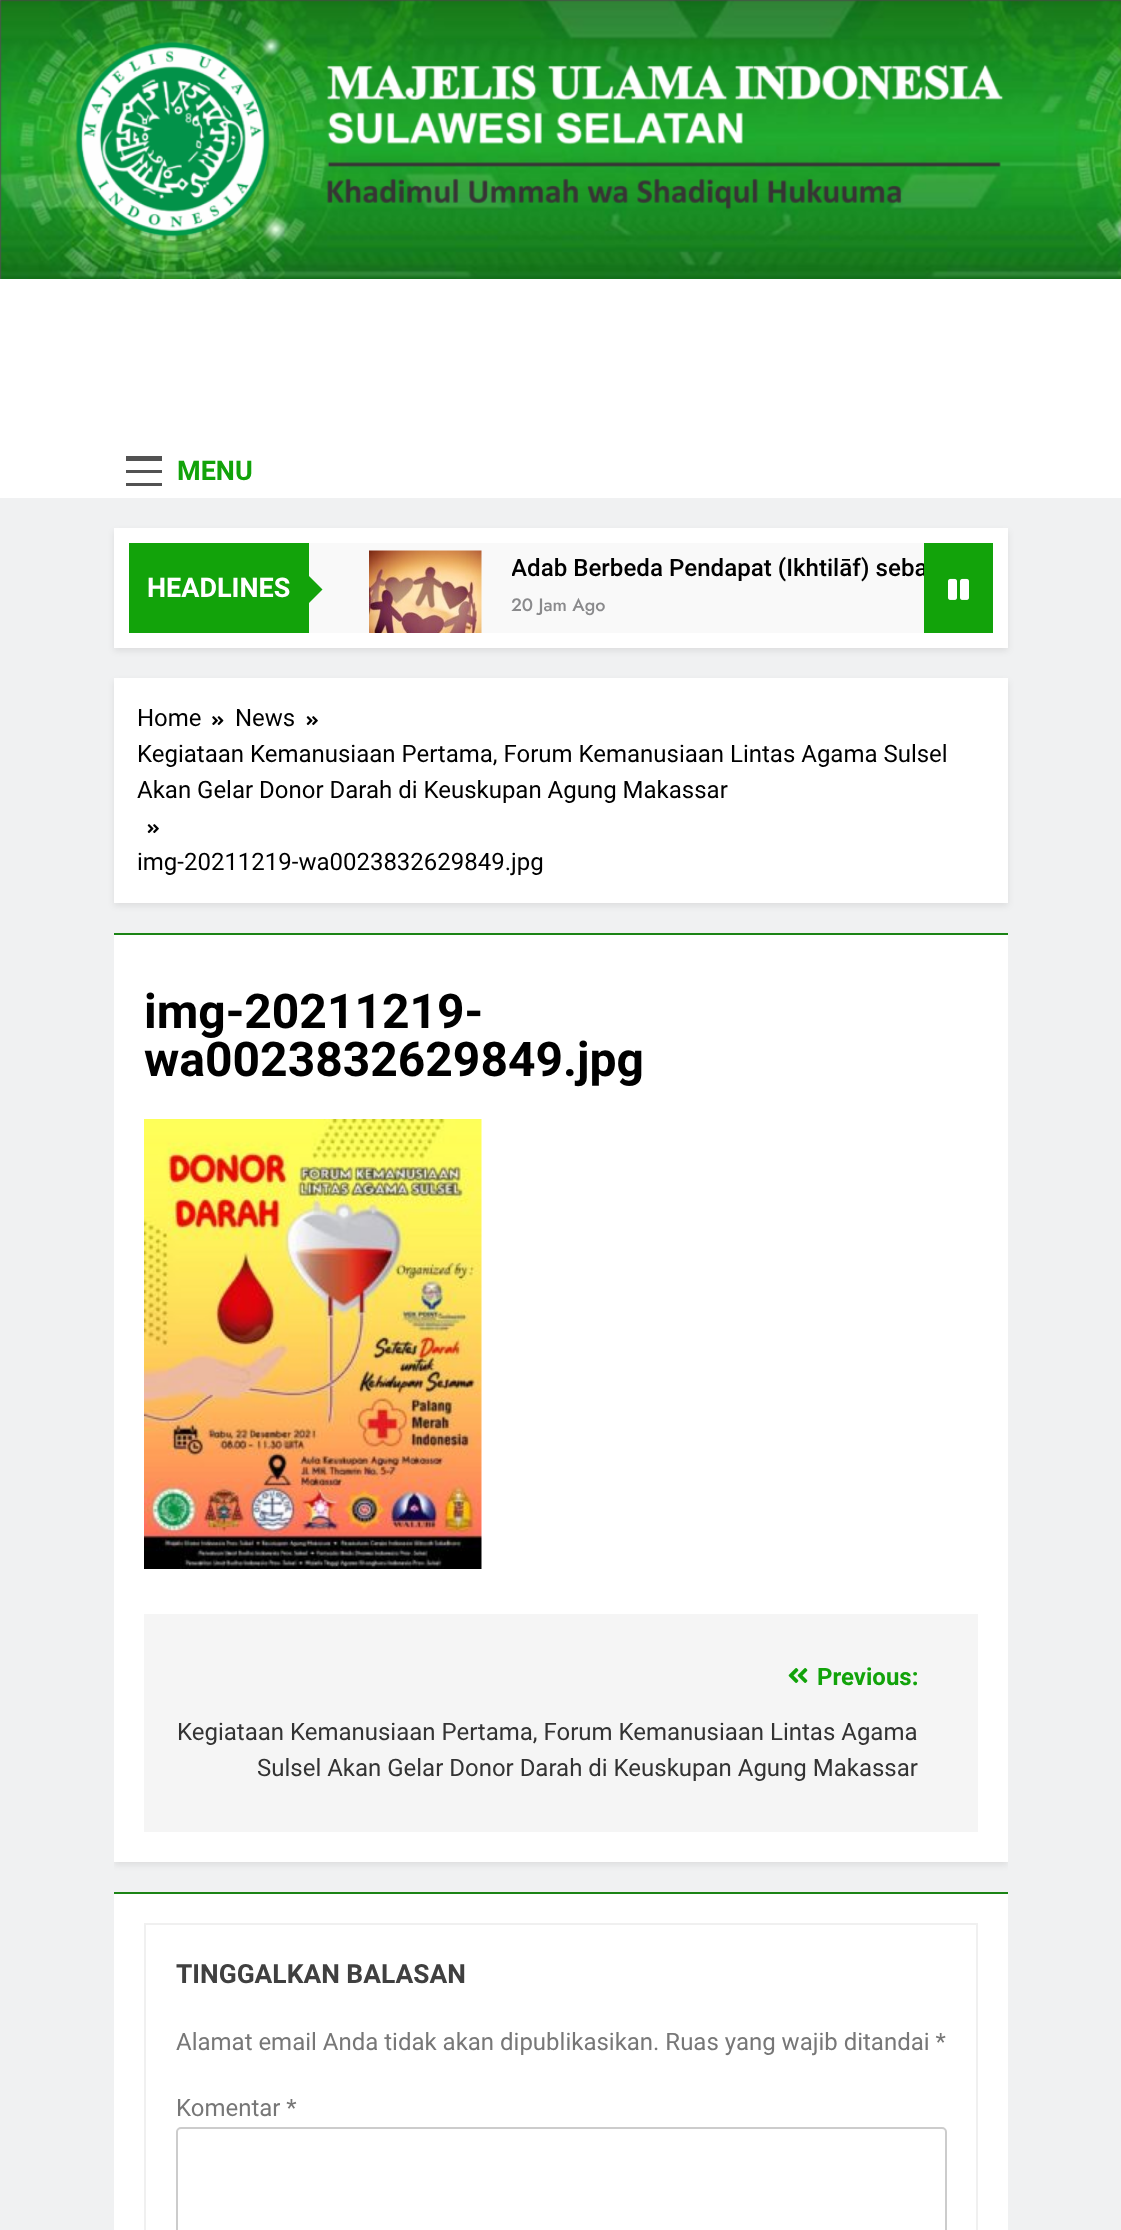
async function draw(canvas) {
  canvas.width = 1121
  canvas.height = 2230
  const ctx = canvas.getContext('2d')
  ctx.miterLimit = 4
  ctx.fontKerning = 'normal'
  async function loadImage(src) {
    const img = new Image()
    img.src = src
    await img.decode()
    return img
  }

  ctx.fillStyle = '#f0f1f2'
  ctx.fillRect(0, 0, 1121, 2230)
  ctx.drawImage(await loadImage('image0.png'), 0, 0, 1121, 279)
  ctx.fillStyle = '#fff'
  ctx.fillRect(0, 279, 1121, 219)
  ctx.fillStyle = '#525252'
  ctx.fillRect(126, 456, 36, 5)
  ctx.fillRect(126, 470, 36, 3)
  ctx.fillRect(126, 483, 36, 3)
  ctx.font = 'bold 27px Roboto'
  ctx.fillStyle = '#12a30a'
  ctx.fillText('MENU', 177, 480)
  ctx.fillStyle = '#00000014'
  ctx.filter = 'blur(3px)'
  ctx.beginPath()
  ctx.rect(114, 531, 894, 120)
  ctx.fill()
  ctx.filter = 'none'
  ctx.fillStyle = '#fff'
  ctx.fillRect(114, 528, 894, 120)
  ctx.fillStyle = '#12a30a'
  ctx.fillRect(129, 543, 180, 90)
  ctx.fillStyle = '#fff'
  ctx.fillText('HEADLINES', 147, 597)
  ctx.fillStyle = '#f9f9f9'
  ctx.fillRect(309, 543, 615, 90)
  ctx.fillStyle = '#12a30a'
  ctx.beginPath()
  ctx.moveTo(307.5, 604.5)
  ctx.lineTo(307.5, 574.5)
  ctx.lineTo(322.5, 589.5)
  ctx.closePath()
  ctx.fill()
  ctx.drawImage(await loadImage('image1.png'), 369, 550, 113, 83)
  ctx.save()
  ctx.beginPath()
  ctx.rect(512, 554, 412, 28)
  ctx.clip()
  ctx.font = '500 24.1px Roboto'
  ctx.fillStyle = '#000'
  ctx.fillText('Adab Berbeda Pendapat (Ikhtilāf) seba', 511, 576)
  ctx.restore()
  ctx.font = '500 18px Jost'
  ctx.fillStyle = '#8a8a8c'
  ctx.fillText('20 Jam Ago', 511, 611)
  ctx.fillStyle = '#12a30a'
  ctx.fillRect(924, 543, 69, 90)
  ctx.drawImage(await loadImage('image2.png'), 948, 578, 21, 22)
  ctx.fillStyle = '#00000014'
  ctx.filter = 'blur(3px)'
  ctx.beginPath()
  ctx.rect(114, 681, 894, 225)
  ctx.fill()
  ctx.filter = 'none'
  ctx.fillStyle = '#fff'
  ctx.fillRect(114, 678, 894, 225)
  ctx.font = '24px Roboto'
  ctx.fillStyle = '#000'
  ctx.fillText('Home', 137, 726)
  ctx.drawImage(await loadImage('image3.png'), 212, 716, 12, 10)
  ctx.fillText('News', 235, 726)
  ctx.drawImage(await loadImage('image4.png'), 306, 716, 12, 10)
  ctx.fillText('Kegiataan Kemanusiaan Pertama, Forum Kemanusiaan Lintas Agama Sulsel', 137, 762)
  ctx.fillText('Akan Gelar Donor Darah di Keuskupan Agung Makassar', 137, 798)
  ctx.drawImage(await loadImage('image4.png'), 147, 824, 12, 10)
  ctx.fillText('img-20211219-wa0023832629849.jpg', 137, 870)
  ctx.save()
  ctx.beginPath()
  ctx.rect(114, 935, 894, 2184)
  ctx.clip()
  ctx.fillStyle = '#00000014'
  ctx.filter = 'blur(3px)'
  ctx.beginPath()
  ctx.rect(114, 938, 894, 927)
  ctx.fill()
  ctx.filter = 'none'
  ctx.restore()
  ctx.fillStyle = '#fff'
  ctx.fillRect(114, 935, 894, 927)
  ctx.fillStyle = '#1b8415'
  ctx.fillRect(114, 933, 894, 2)
  ctx.font = 'bold 48px Roboto'
  ctx.fillStyle = '#000'
  ctx.fillText('img-20211219-', 144, 1028)
  ctx.fillText('wa0023832629849.jpg', 144, 1076)
  ctx.drawImage(await loadImage('image5.png'), 144, 1119, 338, 450)
  ctx.fillStyle = '#f5f5f5'
  ctx.fillRect(144, 1614, 834, 218)
  ctx.drawImage(await loadImage('image6.png'), 788, 1668, 20, 15)
  ctx.font = 'bold 24px Roboto'
  ctx.fillStyle = '#12a30a'
  ctx.fillText('Previous:', 817, 1685)
  ctx.font = '24px Roboto'
  ctx.fillStyle = '#333'
  ctx.fillText('Kegiataan Kemanusiaan Pertama, Forum Kemanusiaan Lintas Agama', 177, 1740)
  ctx.fillText('Sulsel Akan Gelar Donor Darah di Keuskupan Agung Makassar', 257, 1776)
  ctx.fillStyle = '#fff'
  ctx.fillRect(114, 1894, 894, 336)
  ctx.fillStyle = '#1b8415'
  ctx.fillRect(114, 1892, 894, 2)
  ctx.strokeStyle = '#f0f0f0'
  ctx.lineWidth = 2
  ctx.strokeRect(145, 1924, 832, 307)
  ctx.font = 'bold 26.4px Roboto'
  ctx.fillStyle = '#404040'
  ctx.fillText('TINGGALKAN BALASAN', 176, 1983)
  ctx.font = '24px Roboto'
  ctx.fillStyle = '#777'
  ctx.fillText('Alamat email Anda tidak akan dipublikasikan. Ruas yang wajib ditandai *', 176, 2050)
  ctx.fillText('Komentar *', 176, 2116)
  ctx.beginPath()
  ctx.roundRect(177, 2128, 769, 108, 4)
  ctx.strokeStyle = '#ccc'
  ctx.stroke()
}

draw(document.querySelector('canvas'))
